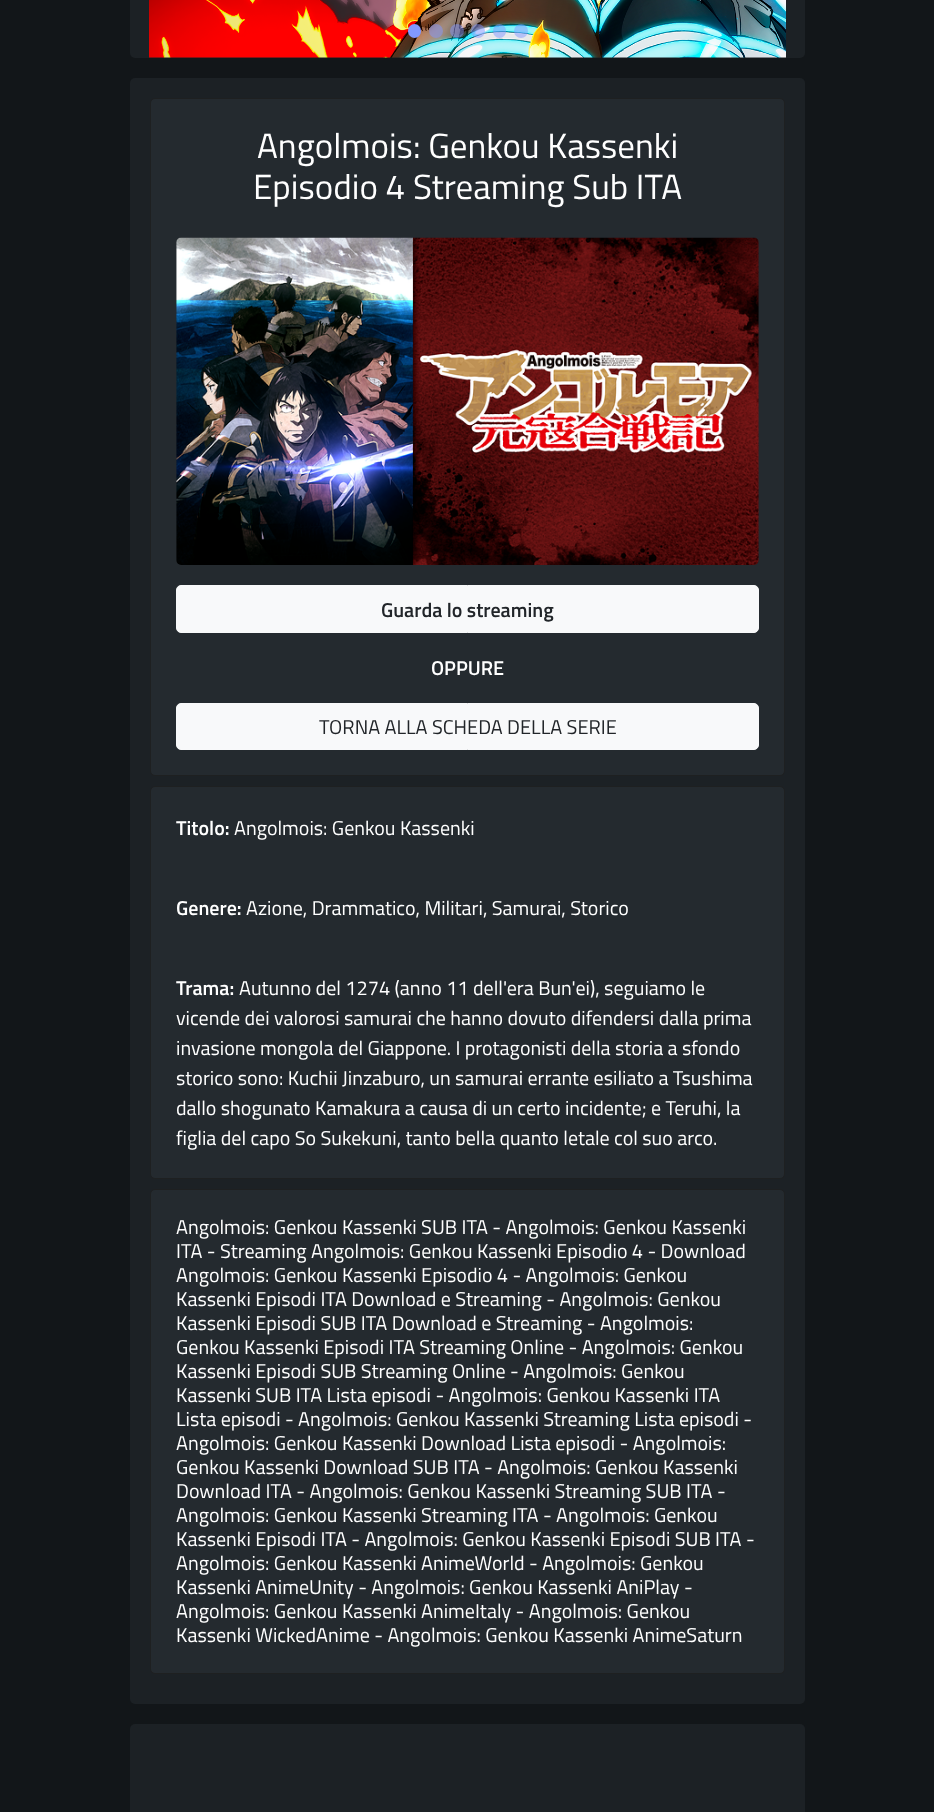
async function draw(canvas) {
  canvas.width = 934
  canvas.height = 1812
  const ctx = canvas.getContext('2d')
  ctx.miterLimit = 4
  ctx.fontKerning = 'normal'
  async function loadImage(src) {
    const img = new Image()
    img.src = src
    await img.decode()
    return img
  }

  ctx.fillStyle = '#121619'
  ctx.fillRect(0, 0, 934, 1812)
  ctx.fillStyle = '#1c2125'
  ctx.beginPath()
  ctx.roundRect(130, -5, 675, 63, 5)
  ctx.fill()
  ctx.drawImage(await loadImage('image0.png'), 149, 0, 637, 58)
  ctx.fillStyle = '#8198ff'
  ctx.beginPath()
  ctx.roundRect(408, 24, 13, 14, 6.5)
  ctx.fill()
  ctx.fillStyle = '#8198ff80'
  ctx.beginPath()
  ctx.arc(436, 31, 7, 0, 2 * Math.PI)
  ctx.fill()
  ctx.beginPath()
  ctx.arc(457, 31, 7, 0, 2 * Math.PI)
  ctx.fill()
  ctx.beginPath()
  ctx.arc(478, 31, 7, 0, 2 * Math.PI)
  ctx.fill()
  ctx.beginPath()
  ctx.roundRect(493, 24, 13, 14, 6.5)
  ctx.fill()
  ctx.beginPath()
  ctx.arc(521, 31, 7, 0, 2 * Math.PI)
  ctx.fill()
  ctx.fillStyle = '#1c2125'
  ctx.beginPath()
  ctx.roundRect(130, 78, 675, 1626, 5)
  ctx.fill()
  ctx.fillStyle = '#242a2f'
  ctx.beginPath()
  ctx.roundRect(150.5, 98.5, 634, 677, 4.5)
  ctx.fill()
  ctx.strokeStyle = '#1e2021'
  ctx.stroke()
  ctx.font = '35px Titillium Web'
  ctx.fillStyle = '#fff'
  ctx.fillText('Angolmois: Genkou Kassenki', 257, 158)
  ctx.fillText('Episodio 4 Streaming Sub ITA', 253, 199)
  ctx.drawImage(await loadImage('image1.png'), 176, 237, 583, 328)
  ctx.fillStyle = '#f8f9fa'
  ctx.beginPath()
  ctx.roundRect(176.5, 585.5, 582, 47, 4.5)
  ctx.fill()
  ctx.strokeStyle = '#f8f9fa'
  ctx.stroke()
  ctx.font = '600 20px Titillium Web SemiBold'
  ctx.fillStyle = '#212529'
  ctx.fillText('Guarda lo streaming', 381, 617)
  ctx.fillStyle = '#fff'
  ctx.fillText('OPPURE', 431, 675)
  ctx.fillStyle = '#f8f9fa'
  ctx.beginPath()
  ctx.roundRect(176.5, 703.5, 582, 46, 4.5)
  ctx.fill()
  ctx.stroke()
  ctx.font = '20px Titillium Web'
  ctx.fillStyle = '#212529'
  ctx.fillText('TORNA ALLA SCHEDA DELLA SERIE', 319, 734)
  ctx.fillStyle = '#242a2f'
  ctx.beginPath()
  ctx.roundRect(150.5, 786.5, 634, 392, 4.5)
  ctx.fill()
  ctx.strokeStyle = '#1e2021'
  ctx.stroke()
  ctx.font = '600 20px Titillium Web SemiBold'
  ctx.fillStyle = '#fff'
  ctx.fillText('Titolo:', 176, 835)
  ctx.font = '20px Titillium Web'
  ctx.fillText('Angolmois: Genkou Kassenki', 234, 835)
  ctx.font = '600 20px Titillium Web SemiBold'
  ctx.fillText('Genere:', 176, 915)
  ctx.font = '20px Titillium Web'
  ctx.fillText('Azione, Drammatico, Militari, Samurai, Storico', 246, 915)
  ctx.font = '600 20px Titillium Web SemiBold'
  ctx.fillText('Trama:', 176, 995)
  ctx.font = '20px Titillium Web'
  ctx.fillText('Autunno del 1274 (anno 11 dell\'era Bun\'ei), seguiamo le', 239, 995)
  ctx.fillText('vicende dei valorosi samurai che hanno dovuto difendersi dalla prima', 176, 1025)
  ctx.fillText('invasione mongola del Giappone. I protagonisti della storia a sfondo', 176, 1055)
  ctx.fillText('storico sono: Kuchii Jinzaburo, un samurai errante esiliato a Tsushima', 176, 1085)
  ctx.fillText('dallo shogunato Kamakura a causa di un certo incidente; e Teruhi, la', 176, 1115)
  ctx.fillText('figlia del capo So Sukekuni, tanto bella quanto letale col suo arco.', 176, 1145)
  ctx.fillStyle = '#242a2f'
  ctx.beginPath()
  ctx.roundRect(150.5, 1189.5, 634, 484, 4.5)
  ctx.fill()
  ctx.stroke()
  ctx.fillStyle = '#fff'
  ctx.fillText('Angolmois: Genkou Kassenki SUB ITA - Angolmois: Genkou Kassenki', 176, 1234)
  ctx.fillText('ITA - Streaming Angolmois: Genkou Kassenki Episodio 4 - Download', 176, 1258)
  ctx.fillText('Angolmois: Genkou Kassenki Episodio 4 - Angolmois: Genkou', 176, 1282)
  ctx.fillText('Kassenki Episodi ITA Download e Streaming - Angolmois: Genkou', 176, 1306)
  ctx.fillText('Kassenki Episodi SUB ITA Download e Streaming - Angolmois:', 176, 1330)
  ctx.fillText('Genkou Kassenki Episodi ITA Streaming Online - Angolmois: Genkou', 176, 1354)
  ctx.fillText('Kassenki Episodi SUB Streaming Online - Angolmois: Genkou', 176, 1378)
  ctx.fillText('Kassenki SUB ITA Lista episodi - Angolmois: Genkou Kassenki ITA', 176, 1402)
  ctx.fillText('Lista episodi - Angolmois: Genkou Kassenki Streaming Lista episodi -', 176, 1426)
  ctx.fillText('Angolmois: Genkou Kassenki Download Lista episodi - Angolmois:', 176, 1450)
  ctx.fillText('Genkou Kassenki Download SUB ITA - Angolmois: Genkou Kassenki', 176, 1474)
  ctx.fillText('Download ITA - Angolmois: Genkou Kassenki Streaming SUB ITA -', 176, 1498)
  ctx.fillText('Angolmois: Genkou Kassenki Streaming ITA - Angolmois: Genkou', 176, 1522)
  ctx.fillText('Kassenki Episodi ITA - Angolmois: Genkou Kassenki Episodi SUB ITA -', 176, 1546)
  ctx.fillText('Angolmois: Genkou Kassenki AnimeWorld - Angolmois: Genkou', 176, 1570)
  ctx.fillText('Kassenki AnimeUnity - Angolmois: Genkou Kassenki AniPlay -', 176, 1594)
  ctx.fillText('Angolmois: Genkou Kassenki AnimeItaly - Angolmois: Genkou', 176, 1618)
  ctx.fillText('Kassenki WickedAnime - Angolmois: Genkou Kassenki AnimeSaturn', 176, 1642)
  ctx.fillStyle = '#1c2125'
  ctx.beginPath()
  ctx.roundRect(130, 1724, 675, 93, 5)
  ctx.fill()
}

draw(document.querySelector('canvas'))
